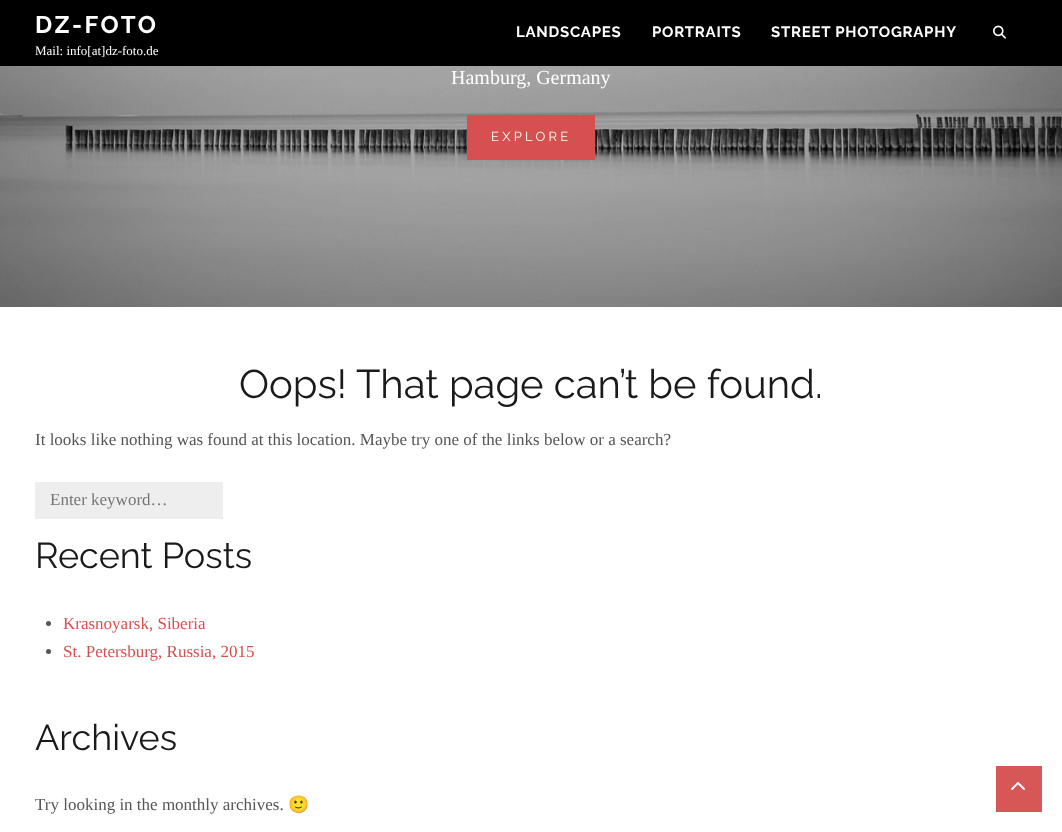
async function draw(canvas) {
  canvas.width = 1062
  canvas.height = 832
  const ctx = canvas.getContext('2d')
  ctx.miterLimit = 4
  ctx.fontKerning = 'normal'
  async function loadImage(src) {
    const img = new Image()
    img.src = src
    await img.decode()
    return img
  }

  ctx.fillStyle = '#fff'
  ctx.fillRect(0, 0, 1062, 832)
  ctx.fillStyle = '#000'
  ctx.fillRect(0, 0, 1062, 66)
  ctx.letterSpacing = '2.5px'
  ctx.font = 'bold 24px Raleway'
  ctx.fillStyle = '#fff'
  ctx.fillText('DZ-FOTO', 35, 33)
  ctx.letterSpacing = '0px'
  ctx.font = '13px Liberation Serif'
  ctx.fillText('Mail: info[at]dz-foto.de', 35, 55)
  ctx.letterSpacing = '0.75px'
  ctx.font = 'bold 15px Raleway'
  ctx.fillText('LANDSCAPES', 516, 37)
  ctx.fillText('PORTRAITS', 652, 37)
  ctx.fillText('STREET PHOTOGRAPHY', 771, 37)
  ctx.drawImage(await loadImage('image0.png'), 993, 25, 13, 14)
  ctx.drawImage(await loadImage('image1.png'), 0, 66, 1062, 241)
  ctx.letterSpacing = '0px'
  ctx.font = '20px Liberation Serif'
  ctx.fillText('Hamburg, Germany', 451, 84)
  ctx.fillStyle = '#d65050'
  ctx.fillRect(467, 115, 128, 45)
  ctx.letterSpacing = '3.25px'
  ctx.font = '13px Raleway'
  ctx.fillStyle = '#fff'
  ctx.fillText('EXPLORE', 491, 141)
  ctx.letterSpacing = '0px'
  ctx.font = '40px Raleway'
  ctx.fillStyle = '#1a1a1a'
  ctx.fillText('Oops! That page can’t be found.', 239, 398)
  ctx.font = '17px Liberation Serif'
  ctx.fillStyle = '#555'
  ctx.fillText('It looks like nothing was found at this location. Maybe try one of the links below or a search?', 35, 445)
  ctx.fillStyle = '#eee'
  ctx.fillRect(36, 483, 187, 35)
  ctx.fillRect(35, 482, 188, 1)
  ctx.fillRect(35, 518, 188, 1)
  ctx.fillRect(35, 482, 1, 37)
  ctx.fillStyle = '#757575'
  ctx.fillText('Enter keyword…', 50, 505)
  ctx.font = '36px Raleway'
  ctx.fillStyle = '#1a1a1a'
  ctx.fillText('Recent Posts', 35, 568)
  ctx.fillStyle = '#555'
  ctx.beginPath()
  ctx.arc(48.5, 623.5, 2.5, 0, 2 * Math.PI)
  ctx.fill()
  ctx.font = '17px Liberation Serif'
  ctx.fillStyle = '#d65050'
  ctx.fillText('Krasnoyarsk, Siberia', 63, 629)
  ctx.fillStyle = '#555'
  ctx.beginPath()
  ctx.arc(48.5, 651.5, 2.5, 0, 2 * Math.PI)
  ctx.fill()
  ctx.fillStyle = '#d65050'
  ctx.fillText('St. Petersburg, Russia, 2015', 63, 657)
  ctx.font = '36px Raleway'
  ctx.fillStyle = '#1a1a1a'
  ctx.fillText('Archives', 35, 750)
  ctx.font = '17px Liberation Serif'
  ctx.fillStyle = '#555'
  ctx.fillText('Try looking in the monthly archives.', 35, 810)
  ctx.font = '17px Noto Color Emoji'
  ctx.fillText('🙂', 288, 810)
  ctx.fillStyle = '#d75656'
  ctx.fillRect(996, 766, 46, 46)
  ctx.drawImage(await loadImage('image2.png'), 1011, 782, 14, 8)
}

draw(document.querySelector('canvas'))
